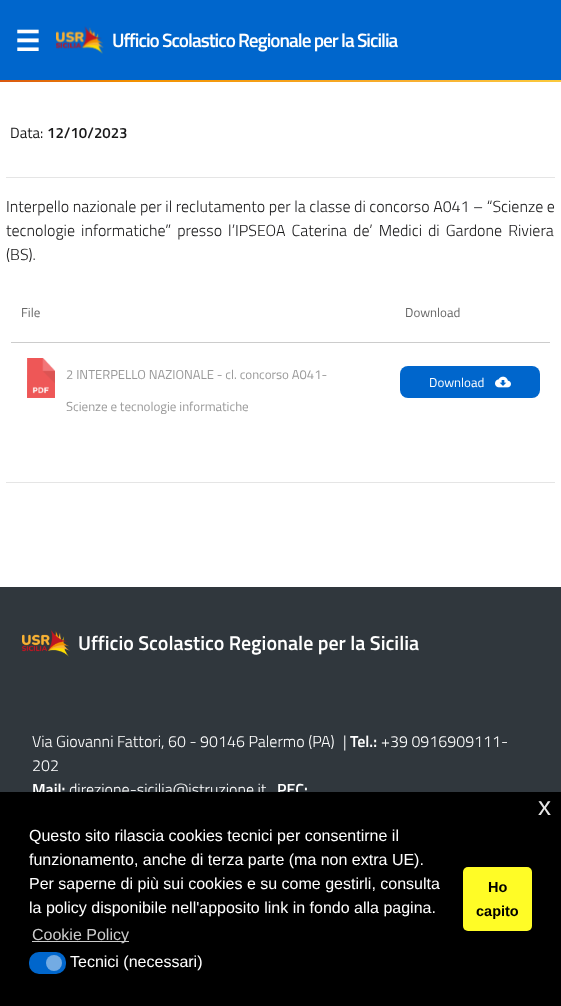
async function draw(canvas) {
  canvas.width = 561
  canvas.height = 1006
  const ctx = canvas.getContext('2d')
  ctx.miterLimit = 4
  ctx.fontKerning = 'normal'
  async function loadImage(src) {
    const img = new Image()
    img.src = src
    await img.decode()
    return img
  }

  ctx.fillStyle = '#fff'
  ctx.fillRect(0, 0, 561, 1006)
  ctx.drawImage(await loadImage('image0.png'), 0, 80, 561, 2)
  ctx.fillStyle = '#06c'
  ctx.fillRect(0, 0, 561, 80)
  ctx.font = 'bold 28px DejaVu Sans'
  ctx.fillStyle = '#fff'
  ctx.fillText('☰', 15, 51)
  ctx.drawImage(await loadImage('image1.png'), 56, 26, 48, 28)
  ctx.letterSpacing = '-1px'
  ctx.font = '600 19.25px Titillium Web'
  ctx.fillText('Ufficio Scolastico Regionale per la Sicilia', 112, 47)
  ctx.letterSpacing = '0px'
  ctx.font = '15px Titillium Web'
  ctx.fillStyle = '#19191a'
  ctx.fillText('Data:', 10, 138)
  ctx.font = '600 15px Titillium Web'
  ctx.fillText('12/10/2023', 47, 138)
  ctx.fillStyle = '#e5e5e5'
  ctx.fillRect(6, 177, 549, 1)
  ctx.font = '300 16px Titillium Web'
  ctx.fillStyle = '#19191a'
  ctx.fillText('Interpello nazionale per il reclutamento per la classe di concorso A041 – “Scienze e', 6, 212)
  ctx.wordSpacing = '2.5px'
  ctx.fillText('tecnologie informatiche” presso l’IPSEOA Caterina de’ Medici di Gardone Riviera', 6, 236)
  ctx.wordSpacing = '0px'
  ctx.fillText('(BS).', 6, 260)
  ctx.font = '13px Titillium Web'
  ctx.fillStyle = '#666'
  ctx.fillText('File', 21, 317)
  ctx.fillText('Download', 405, 317)
  ctx.fillStyle = '#ccc'
  ctx.fillRect(11, 342, 539, 1)
  ctx.drawImage(await loadImage('image2.png'), 27, 358, 28, 40)
  ctx.fillStyle = '#999'
  ctx.fillText('2 INTERPELLO NAZIONALE - cl. concorso A041-', 66, 379)
  ctx.fillText('Scienze e tecnologie informatiche', 66, 411)
  ctx.fillStyle = '#06c'
  ctx.beginPath()
  ctx.roundRect(400, 366, 140, 32, 8)
  ctx.fill()
  ctx.fillStyle = '#fff'
  ctx.fillText('Download', 429, 387)
  ctx.drawImage(await loadImage('image3.png'), 495, 376, 16, 12)
  ctx.fillStyle = '#e5e5e5'
  ctx.fillRect(6, 482, 549, 1)
  ctx.fillStyle = '#30373d'
  ctx.fillRect(0, 587, 561, 205)
  ctx.drawImage(await loadImage('image4.png'), 22, 629, 48, 28)
  ctx.font = '600 20px Titillium Web'
  ctx.fillStyle = '#fff'
  ctx.fillText('Ufficio Scolastico Regionale per la Sicilia', 78, 650)
  ctx.font = '300 16px Titillium Web'
  ctx.fillText('Via Giovanni Fattori, 60 - 90146 Palermo (PA)', 32, 747)
  ctx.fillText('|', 343, 747)
  ctx.font = '600 16px Titillium Web'
  ctx.fillText('Tel.:', 350, 747)
  ctx.font = '300 16px Titillium Web'
  ctx.fillText('+39 0916909111-', 381, 747)
  ctx.fillText('202', 32, 771)
  ctx.font = '600 16px Titillium Web'
  ctx.fillText('Mail:', 32, 795)
  ctx.font = '300 16px Titillium Web'
  ctx.fillText('direzione-sicilia@istruzione.it', 69, 795)
  ctx.font = '600 16px Titillium Web'
  ctx.fillText('PEC:', 277, 795)
  ctx.fillStyle = '#000'
  ctx.fillRect(0, 792, 561, 214)
  ctx.font = '26px Liberation Sans'
  ctx.fillStyle = '#e6e6e6'
  ctx.fillText('x', 538, 815)
  ctx.font = '16px Liberation Sans'
  ctx.fillStyle = '#fff'
  ctx.fillText('Questo sito rilascia cookies tecnici per consentirne il', 29, 841)
  ctx.fillText('funzionamento, anche di terza parte (ma non extra UE).', 29, 865)
  ctx.fillText('Per saperne di più sui cookies e su come gestirli, consulta', 29, 889)
  ctx.fillText('la policy disponibile nell\'apposito link in fondo alla pagina.', 29, 913)
  ctx.fillStyle = '#ccc'
  ctx.fillRect(32, 941, 97, 1)
  ctx.fillText('Cookie Policy', 32, 940)
  ctx.fillStyle = '#06c'
  ctx.beginPath()
  ctx.roundRect(29, 952, 37, 22, 10)
  ctx.fill()
  ctx.fillStyle = '#73abe3'
  ctx.beginPath()
  ctx.arc(54, 963, 8, 0, 2 * Math.PI)
  ctx.fill()
  ctx.fillStyle = '#fff'
  ctx.fillText('Tecnici (necessari)', 70, 967)
  ctx.fillStyle = '#fffc26'
  ctx.beginPath()
  ctx.roundRect(463, 867, 69, 64, 5)
  ctx.fill()
  ctx.font = 'bold 14.5px Liberation Sans'
  ctx.fillStyle = '#000'
  ctx.fillText('Ho', 488, 892)
  ctx.fillText('capito', 476, 916)
}

draw(document.querySelector('canvas'))
